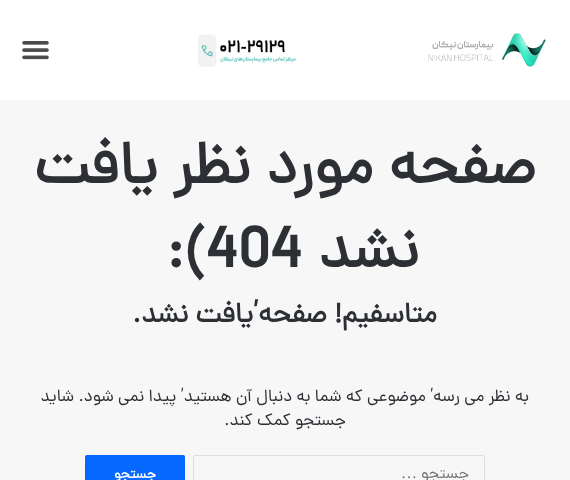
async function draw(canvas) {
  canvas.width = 570
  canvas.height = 480
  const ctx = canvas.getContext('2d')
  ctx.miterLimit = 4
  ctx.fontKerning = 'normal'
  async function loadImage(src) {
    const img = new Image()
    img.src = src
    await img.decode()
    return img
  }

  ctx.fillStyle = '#f7f7f7'
  ctx.fillRect(0, 0, 570, 480)
  ctx.fillStyle = '#fff'
  ctx.fillRect(0, 0, 570, 100)
  ctx.drawImage(await loadImage('image0.png'), 428, 33, 118, 34)
  ctx.drawImage(await loadImage('image1.png'), 198, 34, 98, 33)
  ctx.drawImage(await loadImage('image2.png'), 22, 41, 27, 19)
  ctx.direction = 'rtl'
  ctx.font = 'bold 60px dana'
  ctx.fillStyle = '#2c2f34'
  ctx.fillText('صفحه مورد نظر یافت', 536, 183)
  ctx.fillText('نشد', 419, 267)
  ctx.direction = 'ltr'
  ctx.fillText(':(404', 166, 267)
  ctx.direction = 'rtl'
  ctx.font = 'bold 28px dana'
  ctx.fillText('متاسفیم! صفحه’یافت نشد.', 437, 322)
  ctx.font = '17px dana'
  ctx.fillText('به نظر می رسه’ موضوعی که شما به دنبال آن هستید’ پیدا نمی شود. شاید', 529, 401)
  ctx.fillText('جستجو کمک کند.', 346, 425)
  ctx.beginPath()
  ctx.roundRect(193.5, 455.5, 291, 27, 1.5)
  ctx.strokeStyle = '#dedede'
  ctx.stroke()
  ctx.font = '16px dana'
  ctx.fillStyle = '#757575'
  ctx.fillText('جستجو', 469, 478)
  ctx.font = '16px Liberation Serif'
  ctx.fillText('…', 417, 478)
  ctx.fillStyle = '#0669ff'
  ctx.beginPath()
  ctx.roundRect(85, 455, 100, 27, 2)
  ctx.fill()
  ctx.font = 'bold 14px dana'
  ctx.fillStyle = '#fff'
  ctx.fillText('جستجو', 156, 478)
}

draw(document.querySelector('canvas'))
